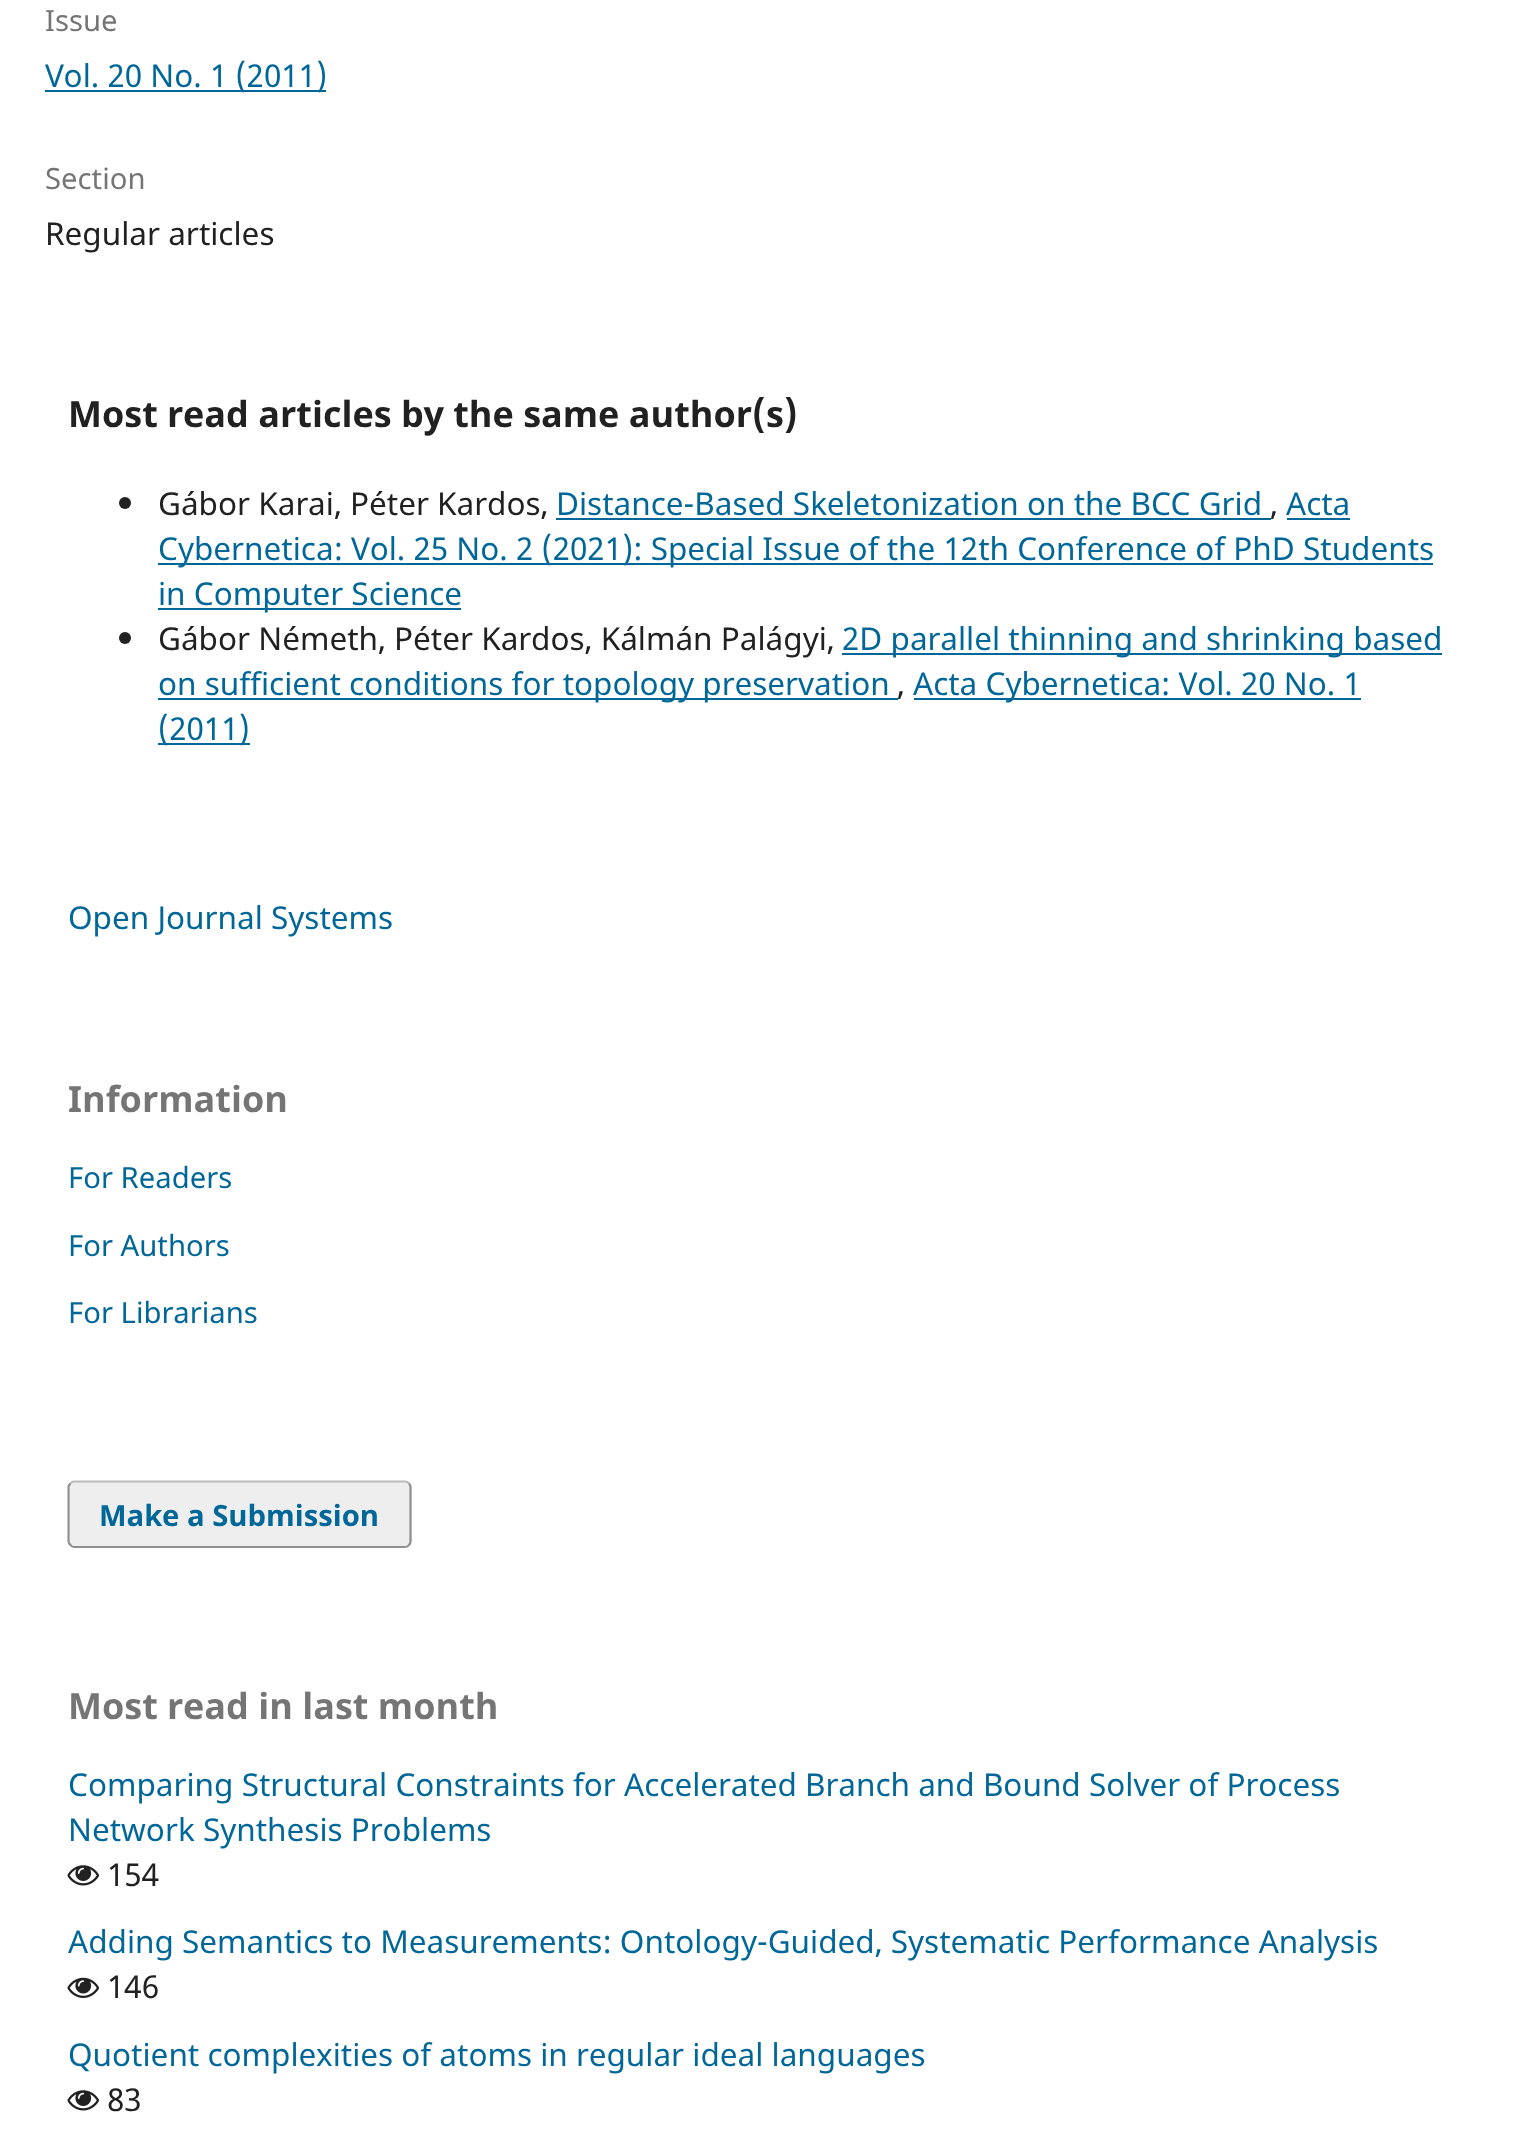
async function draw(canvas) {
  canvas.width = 1523
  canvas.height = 2146
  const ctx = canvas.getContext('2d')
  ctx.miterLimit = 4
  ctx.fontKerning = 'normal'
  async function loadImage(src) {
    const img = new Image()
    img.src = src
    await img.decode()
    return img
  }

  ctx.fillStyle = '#fff'
  ctx.fillRect(0, 0, 1523, 2146)
  ctx.font = '29.25px Noto Sans'
  ctx.fillStyle = '#757575'
  ctx.fillText('Issue', 45, 31)
  ctx.fillStyle = '#006798'
  ctx.fillRect(45, 90, 281, 2)
  ctx.font = '31.5px Noto Sans'
  ctx.fillText('Vol. 20 No. 1 (2011)', 45, 87)
  ctx.font = '29.25px Noto Sans'
  ctx.fillStyle = '#757575'
  ctx.fillText('Section', 45, 189)
  ctx.font = '31.5px Noto Sans'
  ctx.fillStyle = '#212121'
  ctx.fillText('Regular articles', 45, 245)
  ctx.font = 'bold 36px Noto Sans'
  ctx.fillText('Most read articles by the same author(s)', 68, 427)
  ctx.beginPath()
  ctx.arc(125, 503, 6, 0, 2 * Math.PI)
  ctx.fill()
  ctx.font = '31.5px Noto Sans'
  ctx.fillText('Gábor Karai, Péter Kardos,', 158, 515)
  ctx.fillStyle = '#006798'
  ctx.fillText('Distance-Based Skeletonization on the BCC Grid', 556, 515)
  ctx.fillRect(556, 518, 715, 2)
  ctx.fillText('Acta', 1286, 515)
  ctx.fillRect(1287, 518, 63, 2)
  ctx.fillStyle = '#212121'
  ctx.fillText(',', 1270, 515)
  ctx.fillStyle = '#006798'
  ctx.fillRect(158, 563, 1275, 2)
  ctx.fillText('Cybernetica: Vol. 25 No. 2 (2021): Special Issue of the 12th Conference of PhD Students', 158, 560)
  ctx.fillRect(158, 608, 303, 2)
  ctx.fillText('in Computer Science', 158, 605)
  ctx.fillStyle = '#212121'
  ctx.beginPath()
  ctx.arc(125, 638, 6, 0, 2 * Math.PI)
  ctx.fill()
  ctx.fillText('Gábor Németh, Péter Kardos, Kálmán Palágyi,', 158, 650)
  ctx.fillStyle = '#006798'
  ctx.fillRect(842, 653, 600, 2)
  ctx.fillText('2D parallel thinning and shrinking based', 842, 650)
  ctx.fillRect(158, 698, 740, 2)
  ctx.fillText('on sufficient conditions for topology preservation', 158, 695)
  ctx.fillStyle = '#212121'
  ctx.fillText(',', 897, 695)
  ctx.fillStyle = '#006798'
  ctx.fillRect(914, 698, 447, 2)
  ctx.fillText('Acta Cybernetica: Vol. 20 No. 1', 913, 695)
  ctx.fillRect(158, 743, 92, 2)
  ctx.fillText('(2011)', 158, 740)
  ctx.fillText('Open Journal Systems', 68, 929)
  ctx.font = 'bold 36px Noto Sans'
  ctx.fillStyle = '#757575'
  ctx.fillText('Information', 68, 1112)
  ctx.font = '29.25px Noto Sans'
  ctx.fillStyle = '#006798'
  ctx.fillText('For Readers', 68, 1188)
  ctx.fillText('For Authors', 68, 1256)
  ctx.fillText('For Librarians', 68, 1323)
  ctx.fillStyle = '#eee'
  ctx.beginPath()
  ctx.roundRect(68, 1481, 344, 67, 7)
  ctx.fill()
  ctx.beginPath()
  ctx.moveTo(70.5, 1483.5)
  ctx.bezierCurveTo(71.5, 1482, 73, 1481.5, 74, 1481.5)
  ctx.lineTo(405, 1481.5)
  ctx.bezierCurveTo(406.5, 1481.5, 408, 1482, 409, 1483.5)
  ctx.strokeStyle = '#bbb'
  ctx.lineWidth = 2.2
  ctx.stroke()
  ctx.beginPath()
  ctx.moveTo(409, 1483.5)
  ctx.bezierCurveTo(410, 1484.5, 410.5, 1486, 410.5, 1487)
  ctx.lineTo(410.5, 1541)
  ctx.bezierCurveTo(410.5, 1542.5, 410, 1544, 409, 1545)
  ctx.bezierCurveTo(408, 1546.5, 406.5, 1547, 405, 1547)
  ctx.lineTo(74, 1547)
  ctx.bezierCurveTo(73, 1547, 71.5, 1546.5, 70.5, 1545)
  ctx.bezierCurveTo(69, 1544, 68.5, 1542.5, 68.5, 1541)
  ctx.lineTo(68.5, 1487)
  ctx.bezierCurveTo(68.5, 1486, 69, 1484.5, 70.5, 1483.5)
  ctx.strokeStyle = '#00000066'
  ctx.stroke()
  ctx.font = 'bold 29.25px Noto Sans'
  ctx.fillStyle = '#006798'
  ctx.fillText('Make a Submission', 99, 1526)
  ctx.font = 'bold 36px Noto Sans'
  ctx.fillStyle = '#757575'
  ctx.fillText('Most read in last month', 68, 1719)
  ctx.font = '31.5px Noto Sans'
  ctx.fillStyle = '#006798'
  ctx.fillText('Comparing Structural Constraints for Accelerated Branch and Bound Solver of Process', 68, 1796)
  ctx.fillText('Network Synthesis Problems', 68, 1841)
  ctx.drawImage(await loadImage('image0.png'), 67, 1865, 32, 21)
  ctx.fillStyle = '#212121'
  ctx.fillText('154', 107, 1886)
  ctx.fillStyle = '#006798'
  ctx.fillText('Adding Semantics to Measurements: Ontology-Guided, Systematic Performance Analysis', 68, 1953)
  ctx.drawImage(await loadImage('image1.png'), 67, 1977, 32, 21)
  ctx.fillStyle = '#212121'
  ctx.fillText('146', 107, 1998)
  ctx.fillStyle = '#006798'
  ctx.fillText('Quotient complexities of atoms in regular ideal languages', 68, 2066)
  ctx.drawImage(await loadImage('image0.png'), 67, 2090, 32, 21)
  ctx.fillStyle = '#212121'
  ctx.fillText('83', 107, 2111)
}

draw(document.querySelector('canvas'))
